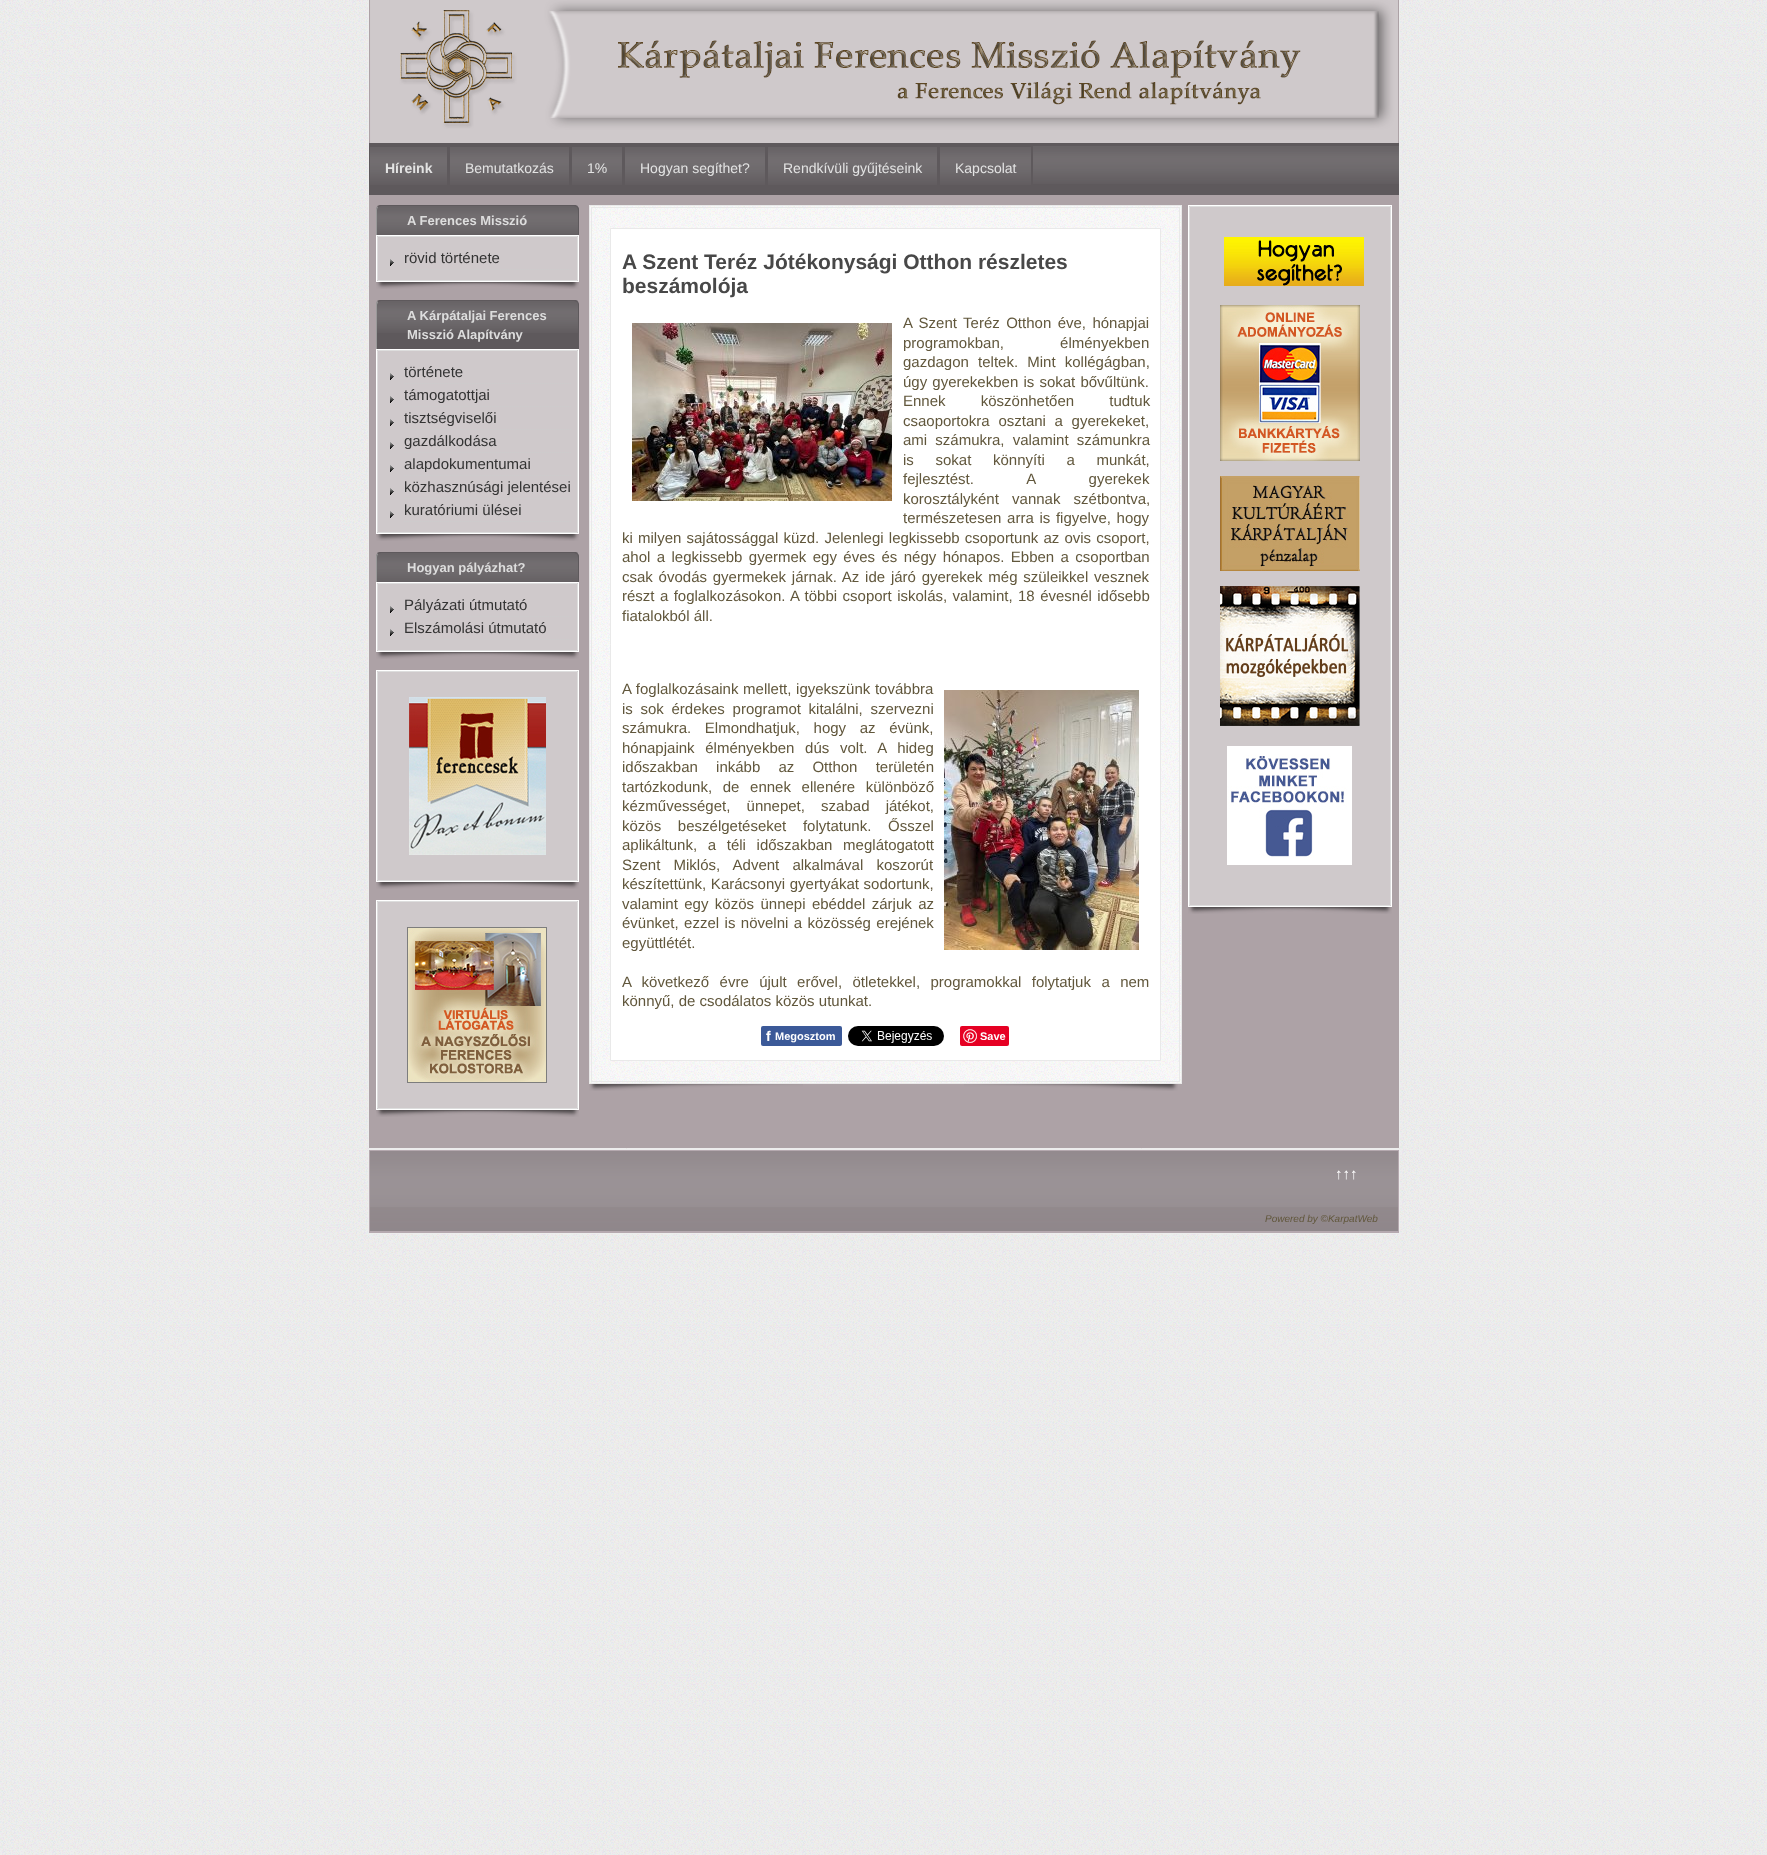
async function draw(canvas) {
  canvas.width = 1767
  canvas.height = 1855
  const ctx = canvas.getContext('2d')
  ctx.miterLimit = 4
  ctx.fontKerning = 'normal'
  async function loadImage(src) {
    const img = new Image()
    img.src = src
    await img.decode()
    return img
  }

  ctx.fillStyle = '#ededed'
  ctx.fillRect(0, 0, 1767, 1855)
  ctx.drawImage(await loadImage('image0.png'), 0, 0, 1767, 1855)
  ctx.fillStyle = '#ada2a6'
  ctx.beginPath()
  ctx.rect(368.5, -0.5, 1031, 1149)
  ctx.fill()
  ctx.strokeStyle = '#ededed'
  ctx.stroke()
  ctx.drawImage(await loadImage('image1.png'), 370, 0, 1, 61)
  ctx.drawImage(await loadImage('image2.png'), 370, 0, 1028, 143)
  ctx.fillStyle = '#5e595c'
  ctx.fillRect(369, 143, 1030, 52)
  ctx.drawImage(await loadImage('image3.png'), 1033, 146, 366, 38)
  ctx.drawImage(await loadImage('image4.png'), 370, 147, 77, 38)
  ctx.font = 'bold 14px Liberation Sans'
  ctx.fillStyle = '#e3e3e3'
  ctx.fillText('Híreink', 385, 173)
  ctx.drawImage(await loadImage('image5.png'), 450, 147, 119, 38)
  ctx.font = '14px Liberation Sans'
  ctx.fillText('Bemutatkozás', 465, 173)
  ctx.drawImage(await loadImage('image6.png'), 572, 147, 50, 38)
  ctx.fillText('1%', 587, 173)
  ctx.drawImage(await loadImage('image7.png'), 625, 147, 140, 38)
  ctx.fillText('Hogyan segíthet?', 640, 173)
  ctx.drawImage(await loadImage('image8.png'), 768, 147, 169, 38)
  ctx.fillText('Rendkívüli gyűjtéseink', 783, 173)
  ctx.drawImage(await loadImage('image9.png'), 940, 147, 91, 38)
  ctx.fillText('Kapcsolat', 955, 173)
  ctx.fillStyle = '#5e595c'
  ctx.beginPath()
  ctx.roundRect(376, 205, 203, 30, [5, 5, 0, 0])
  ctx.fill()
  ctx.drawImage(await loadImage('image10.png'), 376, 206, 203, 29)
  ctx.beginPath()
  ctx.moveTo(381, 205)
  ctx.bezierCurveTo(380, 205, 378, 206, 377, 206)
  ctx.lineTo(378, 207)
  ctx.lineTo(381, 206)
  ctx.lineTo(574, 206)
  ctx.lineTo(577, 207)
  ctx.lineTo(578, 206)
  ctx.bezierCurveTo(577, 206, 576, 205, 574, 205)
  ctx.closePath()
  ctx.fill()
  ctx.beginPath()
  ctx.moveTo(578, 235)
  ctx.lineTo(579, 235)
  ctx.lineTo(579, 210)
  ctx.bezierCurveTo(579, 208.5, 578.5, 207, 577.5, 206.5)
  ctx.lineTo(577, 207)
  ctx.bezierCurveTo(577.5, 208, 578, 209, 578, 210)
  ctx.closePath()
  ctx.fill()
  ctx.fillStyle = '#999'
  ctx.beginPath()
  ctx.moveTo(376, 235)
  ctx.lineTo(377, 235)
  ctx.lineTo(377, 210)
  ctx.bezierCurveTo(377, 209, 377.5, 208, 378, 207)
  ctx.lineTo(377.5, 206.5)
  ctx.bezierCurveTo(376.5, 207, 376, 208.5, 376, 210)
  ctx.closePath()
  ctx.fill()
  ctx.font = 'bold 13px Liberation Sans'
  ctx.fillStyle = '#ddd'
  ctx.fillText('A Ferences Misszió', 407, 225)
  ctx.strokeStyle = '#fff'
  ctx.strokeRect(376.5, 235.5, 202, 46)
  ctx.fillStyle = '#cfc9cb'
  ctx.beginPath()
  ctx.rect(377.5, 236.5, 200, 44)
  ctx.fill()
  ctx.strokeStyle = '#ddd'
  ctx.stroke()
  ctx.drawImage(await loadImage('image11.png'), 390, 259, 4, 7)
  ctx.beginPath()
  ctx.moveTo(404, 269.5)
  ctx.lineTo(571, 269.5)
  ctx.strokeStyle = '#ccc'
  ctx.setLineDash([1, 1])
  ctx.stroke()
  ctx.font = '15px Liberation Sans'
  ctx.fillStyle = '#333'
  ctx.fillText('rövid története', 404, 263)
  ctx.drawImage(await loadImage('image12.png'), 376, 282, 203, 7)
  ctx.drawImage(await loadImage('image13.png'), 376, 282, 203, 7)
  ctx.fillStyle = '#5e595c'
  ctx.beginPath()
  ctx.roundRect(376, 300, 203, 49, [5, 5, 0, 0])
  ctx.fill()
  ctx.drawImage(await loadImage('image14.png'), 376, 301, 203, 32)
  ctx.beginPath()
  ctx.moveTo(381, 300)
  ctx.bezierCurveTo(380, 300, 378, 300, 377, 301)
  ctx.lineTo(378, 302)
  ctx.lineTo(381, 301)
  ctx.lineTo(574, 301)
  ctx.lineTo(577, 302)
  ctx.lineTo(578, 301)
  ctx.bezierCurveTo(577, 300, 576, 300, 574, 300)
  ctx.closePath()
  ctx.fill()
  ctx.beginPath()
  ctx.moveTo(578, 349)
  ctx.lineTo(579, 349)
  ctx.lineTo(579, 305)
  ctx.bezierCurveTo(579, 304, 578, 302, 578, 301)
  ctx.lineTo(577, 302)
  ctx.bezierCurveTo(578, 303, 578, 304, 578, 305)
  ctx.closePath()
  ctx.fill()
  ctx.fillStyle = '#999'
  ctx.beginPath()
  ctx.moveTo(376, 349)
  ctx.lineTo(377, 349)
  ctx.lineTo(377, 305)
  ctx.bezierCurveTo(377, 304, 378, 303, 378, 302)
  ctx.lineTo(377, 301)
  ctx.bezierCurveTo(376, 302, 376, 304, 376, 305)
  ctx.closePath()
  ctx.fill()
  ctx.font = 'bold 13px Liberation Sans'
  ctx.fillStyle = '#ddd'
  ctx.fillText('A Kárpátaljai Ferences', 407, 320)
  ctx.fillText('Misszió Alapítvány', 407, 339)
  ctx.strokeStyle = '#fff'
  ctx.setLineDash([])
  ctx.strokeRect(376.5, 349.5, 202, 184)
  ctx.fillStyle = '#cfc9cb'
  ctx.beginPath()
  ctx.rect(377.5, 350.5, 200, 182)
  ctx.fill()
  ctx.strokeStyle = '#ddd'
  ctx.stroke()
  ctx.drawImage(await loadImage('image11.png'), 390, 373, 4, 7)
  ctx.beginPath()
  ctx.moveTo(404, 383.5)
  ctx.lineTo(571, 383.5)
  ctx.strokeStyle = '#ccc'
  ctx.setLineDash([1, 1])
  ctx.stroke()
  ctx.font = '15px Liberation Sans'
  ctx.fillStyle = '#333'
  ctx.fillText('története', 404, 377)
  ctx.drawImage(await loadImage('image11.png'), 390, 396, 4, 7)
  ctx.beginPath()
  ctx.moveTo(404, 406.5)
  ctx.lineTo(571, 406.5)
  ctx.stroke()
  ctx.fillText('támogatottjai', 404, 400)
  ctx.drawImage(await loadImage('image11.png'), 390, 419, 4, 7)
  ctx.beginPath()
  ctx.moveTo(404, 429.5)
  ctx.lineTo(571, 429.5)
  ctx.stroke()
  ctx.fillText('tisztségviselői', 404, 423)
  ctx.drawImage(await loadImage('image11.png'), 390, 442, 4, 7)
  ctx.beginPath()
  ctx.moveTo(404, 452.5)
  ctx.lineTo(571, 452.5)
  ctx.stroke()
  ctx.fillText('gazdálkodása', 404, 446)
  ctx.drawImage(await loadImage('image11.png'), 390, 465, 4, 7)
  ctx.beginPath()
  ctx.moveTo(404, 475.5)
  ctx.lineTo(571, 475.5)
  ctx.stroke()
  ctx.fillText('alapdokumentumai', 404, 469)
  ctx.drawImage(await loadImage('image11.png'), 390, 488, 4, 7)
  ctx.beginPath()
  ctx.moveTo(404, 498.5)
  ctx.lineTo(571, 498.5)
  ctx.stroke()
  ctx.fillText('közhasznúsági jelentései', 404, 492)
  ctx.drawImage(await loadImage('image11.png'), 390, 511, 4, 7)
  ctx.beginPath()
  ctx.moveTo(404, 521.5)
  ctx.lineTo(571, 521.5)
  ctx.stroke()
  ctx.fillText('kuratóriumi ülései', 404, 515)
  ctx.drawImage(await loadImage('image12.png'), 376, 534, 203, 7)
  ctx.drawImage(await loadImage('image13.png'), 376, 534, 203, 7)
  ctx.fillStyle = '#5e595c'
  ctx.beginPath()
  ctx.roundRect(376, 552, 203, 30, [5, 5, 0, 0])
  ctx.fill()
  ctx.drawImage(await loadImage('image10.png'), 376, 553, 203, 29)
  ctx.beginPath()
  ctx.moveTo(381, 552)
  ctx.bezierCurveTo(380, 552, 378, 552, 377, 553)
  ctx.lineTo(378, 554)
  ctx.lineTo(381, 553)
  ctx.lineTo(574, 553)
  ctx.lineTo(577, 554)
  ctx.lineTo(578, 553)
  ctx.bezierCurveTo(577, 552, 576, 552, 574, 552)
  ctx.closePath()
  ctx.fill()
  ctx.beginPath()
  ctx.moveTo(578, 582)
  ctx.lineTo(579, 582)
  ctx.lineTo(579, 557)
  ctx.bezierCurveTo(579, 555.5, 578.5, 554, 577.5, 553.5)
  ctx.lineTo(577, 554)
  ctx.bezierCurveTo(577.5, 555, 578, 556, 578, 557)
  ctx.closePath()
  ctx.fill()
  ctx.fillStyle = '#999'
  ctx.beginPath()
  ctx.moveTo(376, 582)
  ctx.lineTo(377, 582)
  ctx.lineTo(377, 557)
  ctx.bezierCurveTo(377, 556, 377.5, 555, 378, 554)
  ctx.lineTo(377.5, 553.5)
  ctx.bezierCurveTo(376.5, 554, 376, 555.5, 376, 557)
  ctx.closePath()
  ctx.fill()
  ctx.font = 'bold 13px Liberation Sans'
  ctx.fillStyle = '#ddd'
  ctx.fillText('Hogyan pályázhat?', 407, 572)
  ctx.strokeStyle = '#fff'
  ctx.setLineDash([])
  ctx.strokeRect(376.5, 582.5, 202, 69)
  ctx.fillStyle = '#cfc9cb'
  ctx.beginPath()
  ctx.rect(377.5, 583.5, 200, 67)
  ctx.fill()
  ctx.strokeStyle = '#ddd'
  ctx.stroke()
  ctx.drawImage(await loadImage('image11.png'), 390, 606, 4, 7)
  ctx.beginPath()
  ctx.moveTo(404, 616.5)
  ctx.lineTo(571, 616.5)
  ctx.strokeStyle = '#ccc'
  ctx.setLineDash([1, 1])
  ctx.stroke()
  ctx.font = '15px Liberation Sans'
  ctx.fillStyle = '#333'
  ctx.fillText('Pályázati útmutató', 404, 610)
  ctx.drawImage(await loadImage('image11.png'), 390, 629, 4, 7)
  ctx.beginPath()
  ctx.moveTo(404, 639.5)
  ctx.lineTo(571, 639.5)
  ctx.stroke()
  ctx.fillText('Elszámolási útmutató', 404, 633)
  ctx.drawImage(await loadImage('image12.png'), 376, 652, 203, 7)
  ctx.drawImage(await loadImage('image13.png'), 376, 652, 203, 7)
  ctx.strokeStyle = '#fff'
  ctx.setLineDash([])
  ctx.strokeRect(376.5, 670.5, 202, 211)
  ctx.fillStyle = '#cfc9cb'
  ctx.beginPath()
  ctx.rect(377.5, 671.5, 200, 209)
  ctx.fill()
  ctx.strokeStyle = '#ddd'
  ctx.stroke()
  ctx.drawImage(await loadImage('image15.png'), 409, 697, 137, 158)
  ctx.drawImage(await loadImage('image12.png'), 376, 882, 203, 7)
  ctx.drawImage(await loadImage('image13.png'), 376, 882, 203, 7)
  ctx.strokeStyle = '#fff'
  ctx.strokeRect(376.5, 900.5, 202, 209)
  ctx.beginPath()
  ctx.rect(377.5, 901.5, 200, 207)
  ctx.fill()
  ctx.strokeStyle = '#ddd'
  ctx.stroke()
  ctx.drawImage(await loadImage('image16.png'), 407, 927, 140, 156)
  ctx.drawImage(await loadImage('image12.png'), 376, 1110, 203, 7)
  ctx.drawImage(await loadImage('image13.png'), 376, 1110, 203, 7)
  ctx.fillStyle = '#f9f9f9'
  ctx.fillRect(590, 206, 591, 877)
  ctx.drawImage(await loadImage('image17.png'), 590, 206, 591, 877)
  ctx.strokeStyle = '#e9e9e9'
  ctx.strokeRect(589.5, 205.5, 592, 878)
  ctx.strokeRect(591.5, 207.5, 588, 874)
  ctx.fillStyle = '#fff'
  ctx.beginPath()
  ctx.rect(610.5, 228.5, 550, 832)
  ctx.fill()
  ctx.stroke()
  ctx.font = 'bold 21px Liberation Sans'
  ctx.fillStyle = '#484848'
  ctx.fillText('A Szent Teréz Jótékonysági Otthon részletes', 622, 269)
  ctx.fillText('beszámolója', 622, 293)
  ctx.drawImage(await loadImage('image18.png'), 632, 323, 260, 178)
  ctx.wordSpacing = '2.25px'
  ctx.font = '15px Liberation Sans'
  ctx.fillStyle = '#61573c'
  ctx.fillText('A Szent Teréz Otthon éve, hónapjai', 903, 328)
  ctx.wordSpacing = '52px'
  ctx.fillText('programokban, élményekben', 903, 348)
  ctx.wordSpacing = '5px'
  ctx.fillText('gazdagon teltek. Mint kollégágban,', 903, 367)
  ctx.wordSpacing = '1px'
  ctx.fillText('úgy gyerekekben is sokat bővűltünk.', 903, 387)
  ctx.wordSpacing = '31px'
  ctx.fillText('Ennek köszönhetően tudtuk', 903, 406)
  ctx.wordSpacing = '4.5px'
  ctx.fillText('csaoportokra osztani a gyerekeket,', 903, 426)
  ctx.wordSpacing = '4px'
  ctx.fillText('ami számukra, valamint számunkra', 903, 445)
  ctx.wordSpacing = '17.5px'
  ctx.fillText('is sokat könnyíti a munkát,', 903, 465)
  ctx.wordSpacing = '49px'
  ctx.fillText('fejlesztést. A gyerekek', 903, 484)
  ctx.wordSpacing = '9px'
  ctx.fillText('korosztályként vannak szétbontva,', 903, 504)
  ctx.wordSpacing = '1.5px'
  ctx.fillText('természetesen arra is figyelve, hogy', 903, 523)
  ctx.wordSpacing = '1px'
  ctx.fillText('ki milyen sajátossággal küzd. Jelenlegi legkissebb csoportunk az ovis csoport,', 622, 543)
  ctx.wordSpacing = '2.25px'
  ctx.fillText('ahol a legkissebb gyermek egy éves és négy hónapos. Ebben a csoportban', 622, 562)
  ctx.wordSpacing = '1.6px'
  ctx.fillText('csak óvodás gyermekek járnak. Az ide járó gyerekek még szüleikkel vesznek', 622, 582)
  ctx.wordSpacing = '1.25px'
  ctx.fillText('részt a foglalkozásokon. A többi csoport iskolás, valamint, 18 évesnél idősebb', 622, 601)
  ctx.wordSpacing = '0px'
  ctx.fillText('fiatalokból áll.', 622, 621)
  ctx.wordSpacing = '0.5px'
  ctx.fillText('A foglalkozásaink mellett, igyekszünk továbbra', 622, 694)
  ctx.drawImage(await loadImage('image19.png'), 944, 690, 195, 260)
  ctx.wordSpacing = '3.5px'
  ctx.fillText('is sok érdekes programot kitalálni, szervezni', 622, 714)
  ctx.wordSpacing = '9.5px'
  ctx.fillText('számukra. Elmondhatjuk, hogy az évünk,', 622, 733)
  ctx.wordSpacing = '6.5px'
  ctx.fillText('hónapjaink élményekben dús volt. A hideg', 622, 753)
  ctx.wordSpacing = '14px'
  ctx.fillText('időszakban inkább az Otthon területén', 622, 772)
  ctx.wordSpacing = '6.5px'
  ctx.fillText('tartózkodunk, de ennek ellenére különböző', 622, 792)
  ctx.wordSpacing = '12px'
  ctx.fillText('kézművességet, ünnepet, szabad játékot,', 622, 811)
  ctx.wordSpacing = '12.5px'
  ctx.fillText('közös beszélgetéseket folytatunk. Ősszel', 622, 831)
  ctx.wordSpacing = '6.5px'
  ctx.fillText('aplikáltunk, a téli időszakban meglátogatott', 622, 850)
  ctx.wordSpacing = '9px'
  ctx.fillText('Szent Miklós, Advent alkalmával koszorút', 622, 870)
  ctx.wordSpacing = '0.5px'
  ctx.fillText('készítettünk, Karácsonyi gyertyákat sodortunk,', 622, 889)
  ctx.wordSpacing = '2.25px'
  ctx.fillText('valamint egy közös ünnepi ebéddel zárjuk az', 622, 909)
  ctx.wordSpacing = '1.25px'
  ctx.fillText('évünket, ezzel is növelni a közösség erejének', 622, 928)
  ctx.wordSpacing = '0px'
  ctx.fillText('együttlétét.', 622, 948)
  ctx.wordSpacing = '6.25px'
  ctx.fillText('A következő évre újult erővel, ötletekkel, programokkal folytatjuk a nem', 622, 987)
  ctx.wordSpacing = '0px'
  ctx.fillText('könnyű, de csodálatos közös utunkat.', 622, 1006)
  ctx.fillStyle = '#3b5998'
  ctx.beginPath()
  ctx.roundRect(761, 1026, 81, 20, 2)
  ctx.fill()
  ctx.font = 'bold 14px Liberation Sans'
  ctx.fillStyle = '#fff'
  ctx.fillText('f', 766, 1041)
  ctx.font = 'bold 11px Liberation Sans'
  ctx.fillText('Megosztom', 775, 1040)
  ctx.drawImage(await loadImage('image20.png'), 848, 1026, 96, 20)
  ctx.fillStyle = '#e60023'
  ctx.beginPath()
  ctx.roundRect(960, 1026, 49, 20, 2)
  ctx.fill()
  ctx.drawImage(await loadImage('image21.png'), 963, 1029, 14, 14)
  ctx.fillStyle = '#fff'
  ctx.fillText('Save', 980, 1040)
  ctx.drawImage(await loadImage('image22.png'), 589, 1084, 214, 7)
  ctx.drawImage(await loadImage('image23.png'), 964, 1084, 214, 7)
  ctx.strokeStyle = '#fff'
  ctx.strokeRect(1188.5, 205.5, 203, 701)
  ctx.fillStyle = '#cfc9cb'
  ctx.beginPath()
  ctx.rect(1189.5, 206.5, 201, 699)
  ctx.fill()
  ctx.strokeStyle = '#ddd'
  ctx.stroke()
  ctx.drawImage(await loadImage('image24.png'), 1224, 237, 140, 49)
  ctx.drawImage(await loadImage('image25.png'), 1220, 305, 140, 156)
  ctx.drawImage(await loadImage('image26.png'), 1220, 476, 140, 95)
  ctx.drawImage(await loadImage('image27.png'), 1220, 586, 140, 140)
  ctx.drawImage(await loadImage('image28.png'), 1227, 746, 125, 119)
  ctx.drawImage(await loadImage('image29.png'), 1188, 907, 204, 7)
  ctx.drawImage(await loadImage('image30.png'), 1188, 907, 204, 7)
  ctx.strokeStyle = '#ededed'
  ctx.strokeRect(368.5, 1149.5, 1031, 84)
  ctx.fillStyle = '#8c8387'
  ctx.fillRect(370, 1151, 1028, 80)
  ctx.drawImage(await loadImage('image31.png'), 370, 1151, 1028, 80)
  ctx.fillStyle = '#b5a9af'
  ctx.fillRect(369, 1150, 1030, 1)
  ctx.fillRect(1398, 1150, 1, 83)
  ctx.fillRect(369, 1231, 1030, 2)
  ctx.fillRect(369, 1150, 1, 83)
  ctx.font = '15px Liberation Sans'
  ctx.fillStyle = '#fff'
  ctx.fillText('↑↑↑', 1335, 1179)
  ctx.font = 'italic 10px Liberation Sans'
  ctx.fillStyle = '#61573c'
  ctx.fillText('Powered by ©KarpatWeb', 1265, 1222)
}

draw(document.querySelector('canvas'))
